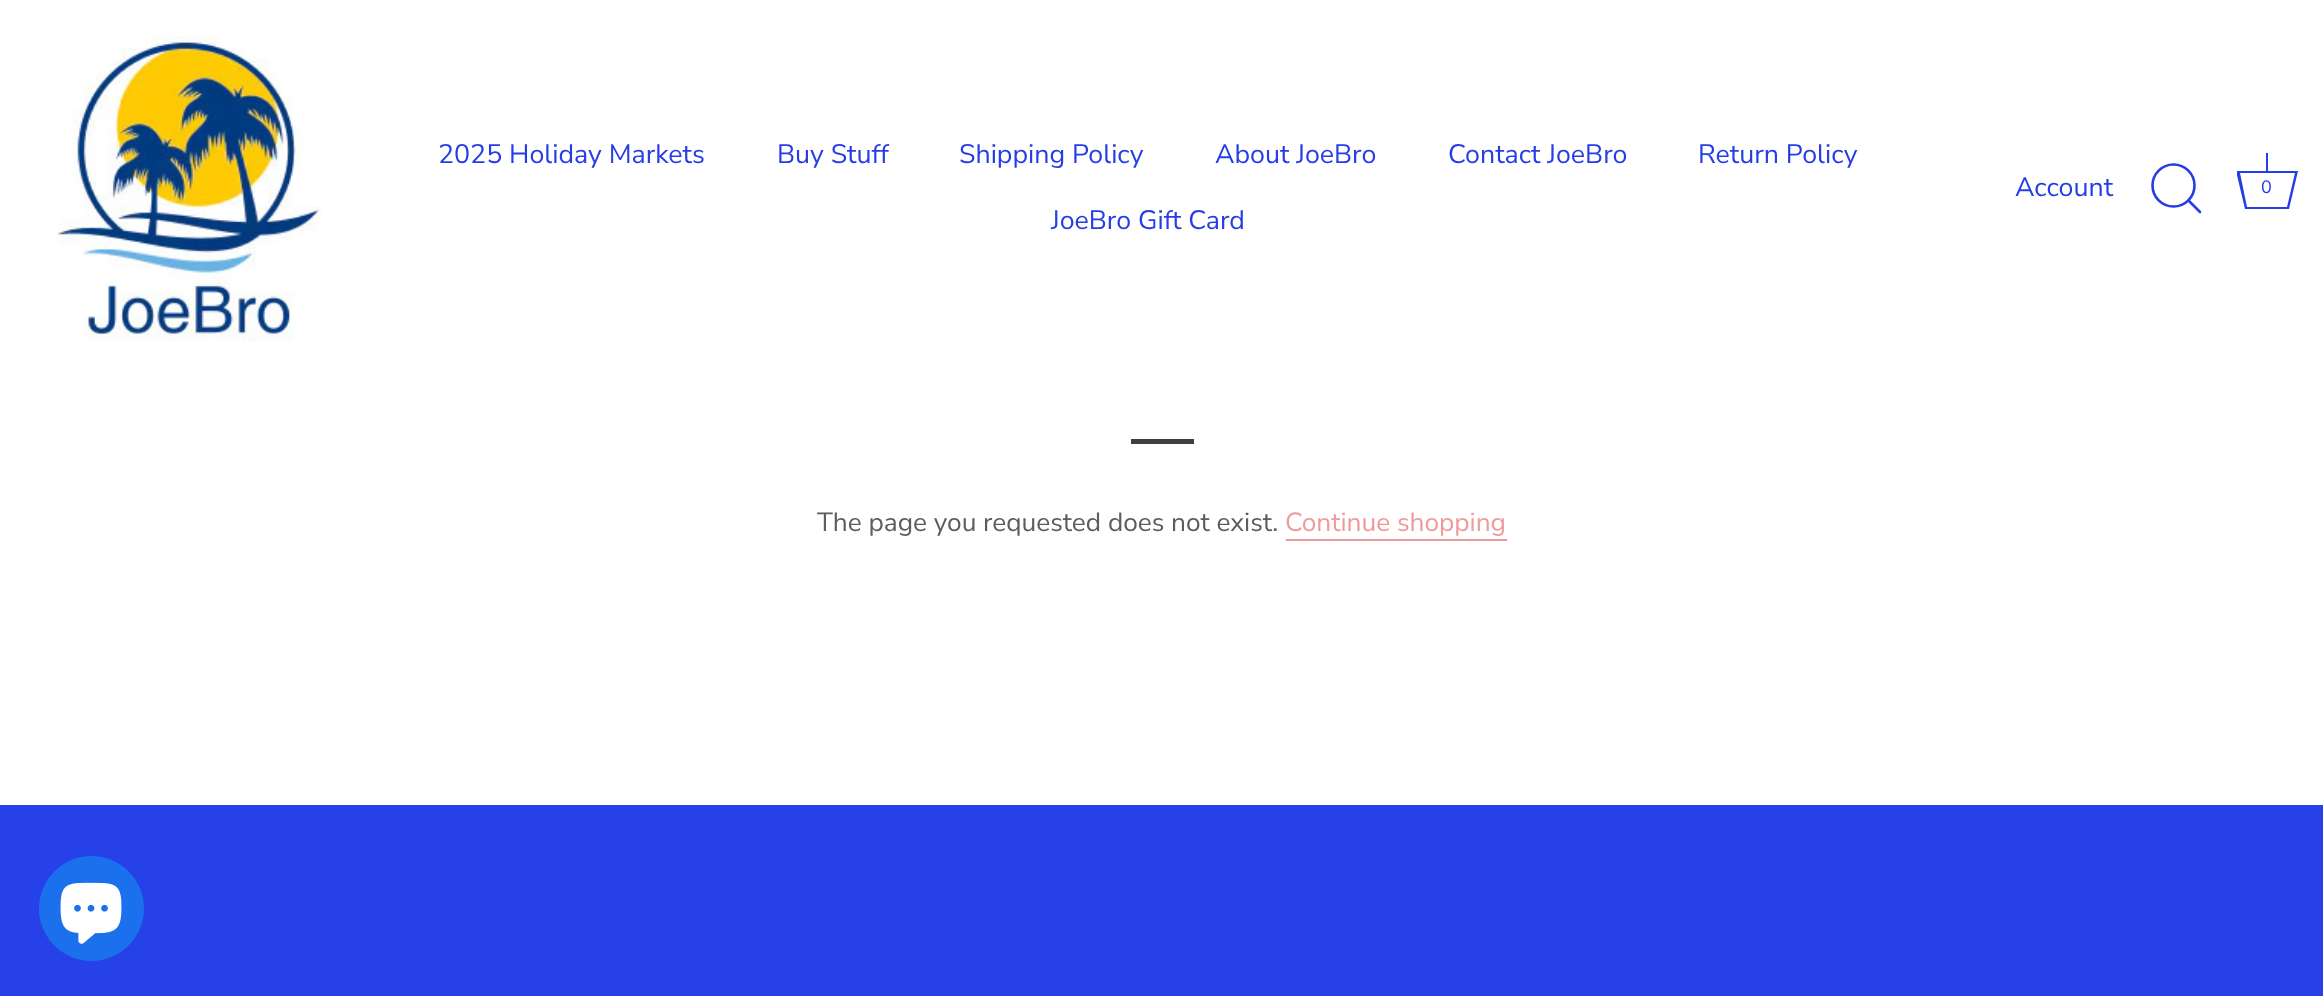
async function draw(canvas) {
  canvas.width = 2323
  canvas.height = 996
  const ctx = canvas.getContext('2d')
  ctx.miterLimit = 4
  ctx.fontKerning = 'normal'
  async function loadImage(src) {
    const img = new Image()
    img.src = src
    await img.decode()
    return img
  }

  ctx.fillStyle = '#fff'
  ctx.fillRect(0, 0, 2323, 996)
  ctx.drawImage(await loadImage('image0.png'), 57, 35, 265, 307)
  ctx.font = '26.75px Nunito Sans'
  ctx.fillStyle = '#263ce7'
  ctx.fillText('2025 Holiday Markets', 438, 163)
  ctx.fillText('Buy Stuff', 777, 163)
  ctx.fillText('Shipping Policy', 959, 163)
  ctx.fillText('About JoeBro', 1215, 163)
  ctx.fillText('Contact JoeBro', 1448, 163)
  ctx.fillText('Return Policy', 1698, 163)
  ctx.fillText('JoeBro Gift Card', 1051, 229)
  ctx.fillText('Account', 2015, 196)
  ctx.beginPath()
  ctx.arc(2173.5, 185.5, 21, 0, 2 * Math.PI)
  ctx.strokeStyle = '#263ce7'
  ctx.lineWidth = 2.6
  ctx.stroke()
  ctx.beginPath()
  ctx.moveTo(2200, 212)
  ctx.lineTo(2188.5, 200.5)
  ctx.lineCap = 'round'
  ctx.lineJoin = 'round'
  ctx.stroke()
  ctx.fillRect(2266, 153, 2, 18)
  ctx.save()
  ctx.beginPath()
  ctx.rect(2237, 151, 61, 61)
  ctx.clip()
  ctx.beginPath()
  ctx.moveTo(2295, 173)
  ctx.lineTo(2287, 207)
  ctx.lineTo(2247, 207)
  ctx.lineTo(2240, 173)
  ctx.lineTo(2295, 173)
  ctx.moveTo(2298, 171)
  ctx.lineTo(2236, 171)
  ctx.lineTo(2245, 209)
  ctx.lineTo(2289, 209)
  ctx.closePath()
  ctx.fill()
  ctx.restore()
  ctx.font = '18px Nunito Sans'
  ctx.fillText('0', 2261, 193)
  ctx.fillStyle = '#423f3f'
  ctx.fillRect(1131, 439, 63, 5)
  ctx.font = '26.25px Nunito Sans'
  ctx.fillStyle = '#5e5c5c'
  ctx.fillText('The page you requested does not exist.', 817, 531)
  ctx.fillStyle = '#ef9a9a'
  ctx.fillText('Continue shopping', 1285, 531)
  ctx.fillRect(1286, 539, 221, 2)
  ctx.fillStyle = '#2641e7'
  ctx.fillRect(0, 805, 2323, 191)
  ctx.fillStyle = '#1b70ed'
  ctx.beginPath()
  ctx.arc(91.5, 908.5, 52.5, 0, 2 * Math.PI)
  ctx.fill()
  ctx.drawImage(await loadImage('image1.png'), 60, 882, 62, 62)
}

draw(document.querySelector('canvas'))
